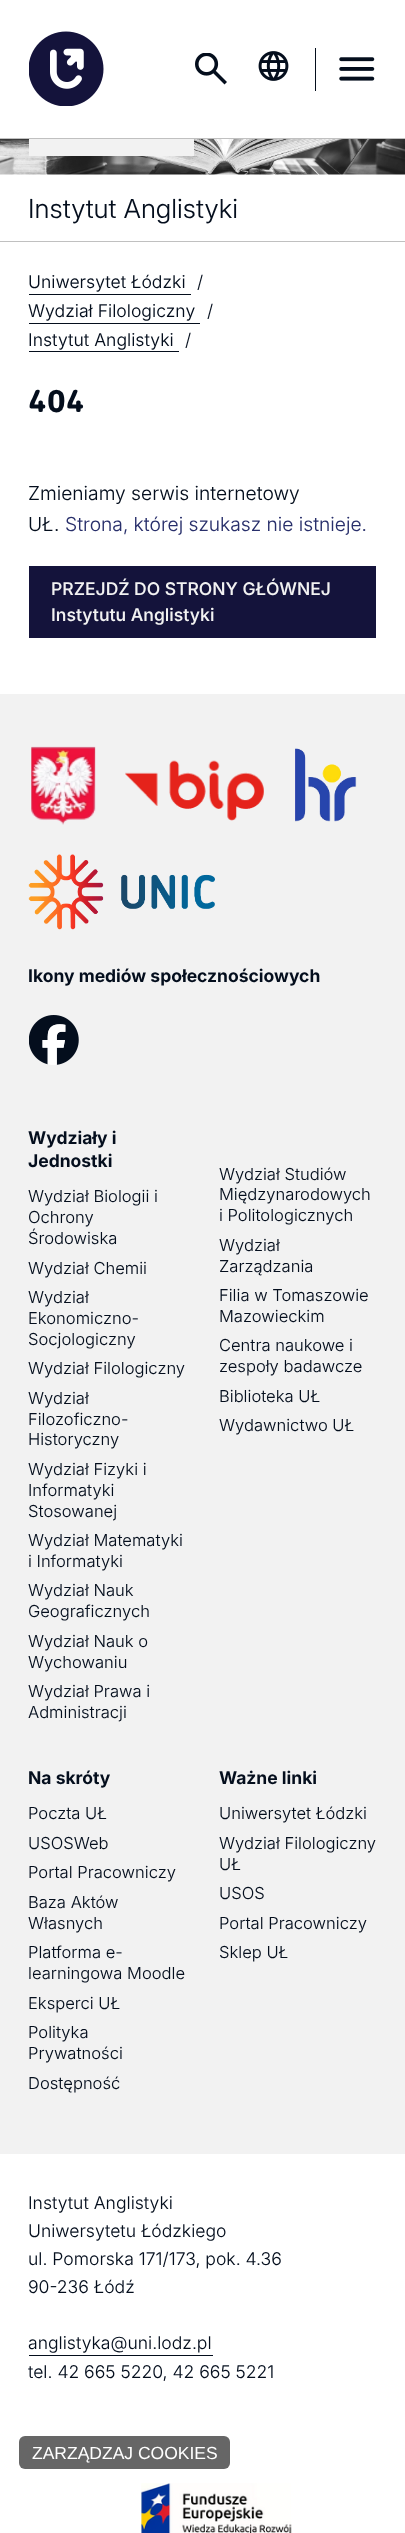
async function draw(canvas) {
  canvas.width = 405
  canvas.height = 2533
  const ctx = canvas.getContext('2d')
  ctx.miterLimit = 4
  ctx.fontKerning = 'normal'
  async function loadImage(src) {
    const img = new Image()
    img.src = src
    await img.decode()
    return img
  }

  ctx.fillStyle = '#fff'
  ctx.fillRect(0, 0, 405, 2533)
  ctx.fillStyle = '#c0c0c0'
  ctx.fillRect(0, 138, 405, 1)
  ctx.drawImage(await loadImage('image0.png'), 29, 31, 75, 75)
  ctx.drawImage(await loadImage('image1.png'), 195, 53, 32, 32)
  ctx.drawImage(await loadImage('image2.png'), 258, 51, 31, 30)
  ctx.fillStyle = '#040e1d'
  ctx.fillRect(315, 48, 1, 43)
  ctx.drawImage(await loadImage('image3.png'), 339, 57, 36, 24)
  ctx.drawImage(await loadImage('image4.png'), 0, 139, 405, 36)
  ctx.fillStyle = '#f2f2f2'
  ctx.fillRect(29, 139, 165, 17)
  ctx.fillStyle = '#c0c0c0'
  ctx.fillRect(0, 241, 405, 1)
  ctx.font = '300 26.25px "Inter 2"'
  ctx.fillStyle = '#040e1d'
  ctx.fillText('Instytut Anglistyki', 28, 218)
  ctx.font = '300 17.5px "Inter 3"'
  ctx.fillText('Uniwersytet Łódzki', 28, 288)
  ctx.fillRect(29, 294, 162, 1)
  ctx.font = '300 17.5px Inter'
  ctx.fillText('/', 197, 288)
  ctx.font = '300 17.5px "Inter 3"'
  ctx.fillText('Wydział Filologiczny', 28, 317)
  ctx.fillRect(29, 323, 171, 1)
  ctx.font = '300 17.5px Inter'
  ctx.fillText('/', 207, 317)
  ctx.font = '300 17.5px "Inter 3"'
  ctx.fillText('Instytut Anglistyki', 28, 346)
  ctx.fillRect(29, 351, 150, 1)
  ctx.font = '300 17.5px Inter'
  ctx.fillText('/', 185, 346)
  ctx.font = 'bold 34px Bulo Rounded'
  ctx.fillText('404', 28, 412)
  ctx.font = '300 19.25px "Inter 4"'
  ctx.fillText('Zmieniamy serwis internetowy', 28, 500)
  ctx.fillText('U', 28, 531)
  ctx.font = '300 19.25px Inter'
  ctx.fillText('Ł', 42, 531)
  ctx.font = '300 19.25px "Inter 4"'
  ctx.fillText('.', 54, 531)
  ctx.fillStyle = '#282f6b'
  ctx.fillText('Strona, której szukasz nie istnieje.', 65, 531)
  ctx.fillStyle = '#14133b'
  ctx.fillRect(29, 566, 347, 72)
  ctx.font = '500 17.5px Inter'
  ctx.fillStyle = '#f2f2f2'
  ctx.fillText('PRZEJDŹ DO STRONY GŁÓWNEJ', 51, 595)
  ctx.fillText('Instytutu Anglistyki', 51, 621)
  ctx.fillRect(0, 694, 405, 1460)
  ctx.drawImage(await loadImage('image5.png'), 31, 746, 65, 79)
  ctx.drawImage(await loadImage('image6.png'), 125, 760, 139, 61)
  ctx.drawImage(await loadImage('image7.png'), 295, 748, 62, 74)
  ctx.drawImage(await loadImage('image8.png'), 28, 854, 187, 76)
  ctx.font = 'bold 17.5px Inter'
  ctx.fillStyle = '#040e1d'
  ctx.fillText('Ikony mediów społecznościowych', 28, 982)
  ctx.drawImage(await loadImage('image9.png'), 29, 1015, 50, 50)
  ctx.fillText('Wydziały i', 28, 1144)
  ctx.fillText('Jednostki', 28, 1167)
  ctx.font = '300 16.5px Inter'
  ctx.fillText('Wydział Biologii i', 28, 1202)
  ctx.fillText('Ochrony', 28, 1223)
  ctx.fillText('Środowiska', 28, 1244)
  ctx.fillText('Wydział Chemii', 28, 1274)
  ctx.fillText('Wydział', 28, 1303)
  ctx.fillText('Ekonomiczno-', 28, 1324)
  ctx.fillText('Socjologiczny', 28, 1345)
  ctx.fillText('Wydział Filologiczny', 28, 1374)
  ctx.fillText('Wydział', 28, 1404)
  ctx.fillText('Filozoficzno-', 28, 1425)
  ctx.fillText('Historyczny', 28, 1445)
  ctx.fillText('Wydział Fizyki i', 28, 1475)
  ctx.fillText('Informatyki', 28, 1496)
  ctx.fillText('Stosowanej', 28, 1517)
  ctx.fillText('Wydział Matematyki', 28, 1546)
  ctx.fillText('i Informatyki', 28, 1567)
  ctx.fillText('Wydział Nauk', 28, 1596)
  ctx.fillText('Geograficznych', 28, 1617)
  ctx.fillText('Wydział Nauk o', 28, 1647)
  ctx.fillText('Wychowaniu', 28, 1668)
  ctx.fillText('Wydział Prawa i', 28, 1697)
  ctx.fillText('Administracji', 28, 1718)
  ctx.fillText('Wydział Studiów', 219, 1180)
  ctx.fillText('Międzynarodowych', 219, 1200)
  ctx.fillText('i Politologicznych', 219, 1221)
  ctx.fillText('Wydział', 219, 1251)
  ctx.fillText('Zarządzania', 219, 1272)
  ctx.fillText('Filia w Tomaszowie', 219, 1301)
  ctx.fillText('Mazowieckim', 219, 1322)
  ctx.fillText('Centra naukowe i', 219, 1351)
  ctx.fillText('zespoły badawcze', 219, 1372)
  ctx.fillText('Biblioteka UŁ', 219, 1402)
  ctx.fillText('Wydawnictwo UŁ', 219, 1431)
  ctx.font = 'bold 17.5px Inter'
  ctx.fillText('Na skróty', 28, 1784)
  ctx.font = '300 16.5px Inter'
  ctx.fillText('Poczta UŁ', 28, 1819)
  ctx.fillText('USOSWeb', 28, 1849)
  ctx.fillText('Portal Pracowniczy', 28, 1878)
  ctx.fillText('Baza Aktów', 28, 1908)
  ctx.fillText('Własnych', 28, 1929)
  ctx.fillText('Platforma e-', 28, 1958)
  ctx.fillText('learningowa Moodle', 28, 1979)
  ctx.fillText('Eksperci UŁ', 28, 2009)
  ctx.fillText('Polityka', 28, 2038)
  ctx.fillText('Prywatności', 28, 2059)
  ctx.fillText('Dostępność', 28, 2089)
  ctx.font = 'bold 17.5px Inter'
  ctx.fillText('Ważne linki', 219, 1784)
  ctx.font = '300 16.5px Inter'
  ctx.fillText('Uniwersytet Łódzki', 219, 1819)
  ctx.fillText('Wydział Filologiczny', 219, 1849)
  ctx.fillText('UŁ', 219, 1870)
  ctx.fillText('USOS', 219, 1899)
  ctx.fillText('Portal Pracowniczy', 219, 1929)
  ctx.fillText('Sklep UŁ', 219, 1958)
  ctx.font = '300 17.5px Inter'
  ctx.fillText('Instytut Anglistyki', 28, 2209)
  ctx.fillText('Uniwersytetu Łódzkiego', 28, 2237)
  ctx.fillText('ul. Pomorska 171/173, pok. 4.36', 28, 2265)
  ctx.fillText('90-236 Łódź', 28, 2293)
  ctx.fillText('anglistyka@uni.lodz.pl', 28, 2349)
  ctx.fillRect(29, 2355, 184, 1)
  ctx.fillText('tel. 42 665 5220, 42 665 5221', 28, 2378)
  ctx.drawImage(await loadImage('image10.png'), 141, 2483, 151, 50)
  ctx.fillStyle = '#666'
  ctx.beginPath()
  ctx.roundRect(19, 2436, 211, 33, 6)
  ctx.fill()
  ctx.font = '17.5px Liberation Sans'
  ctx.fillStyle = '#fff'
  ctx.fillText('ZARZĄDZAJ COOKIES', 32, 2459)
}

draw(document.querySelector('canvas'))
